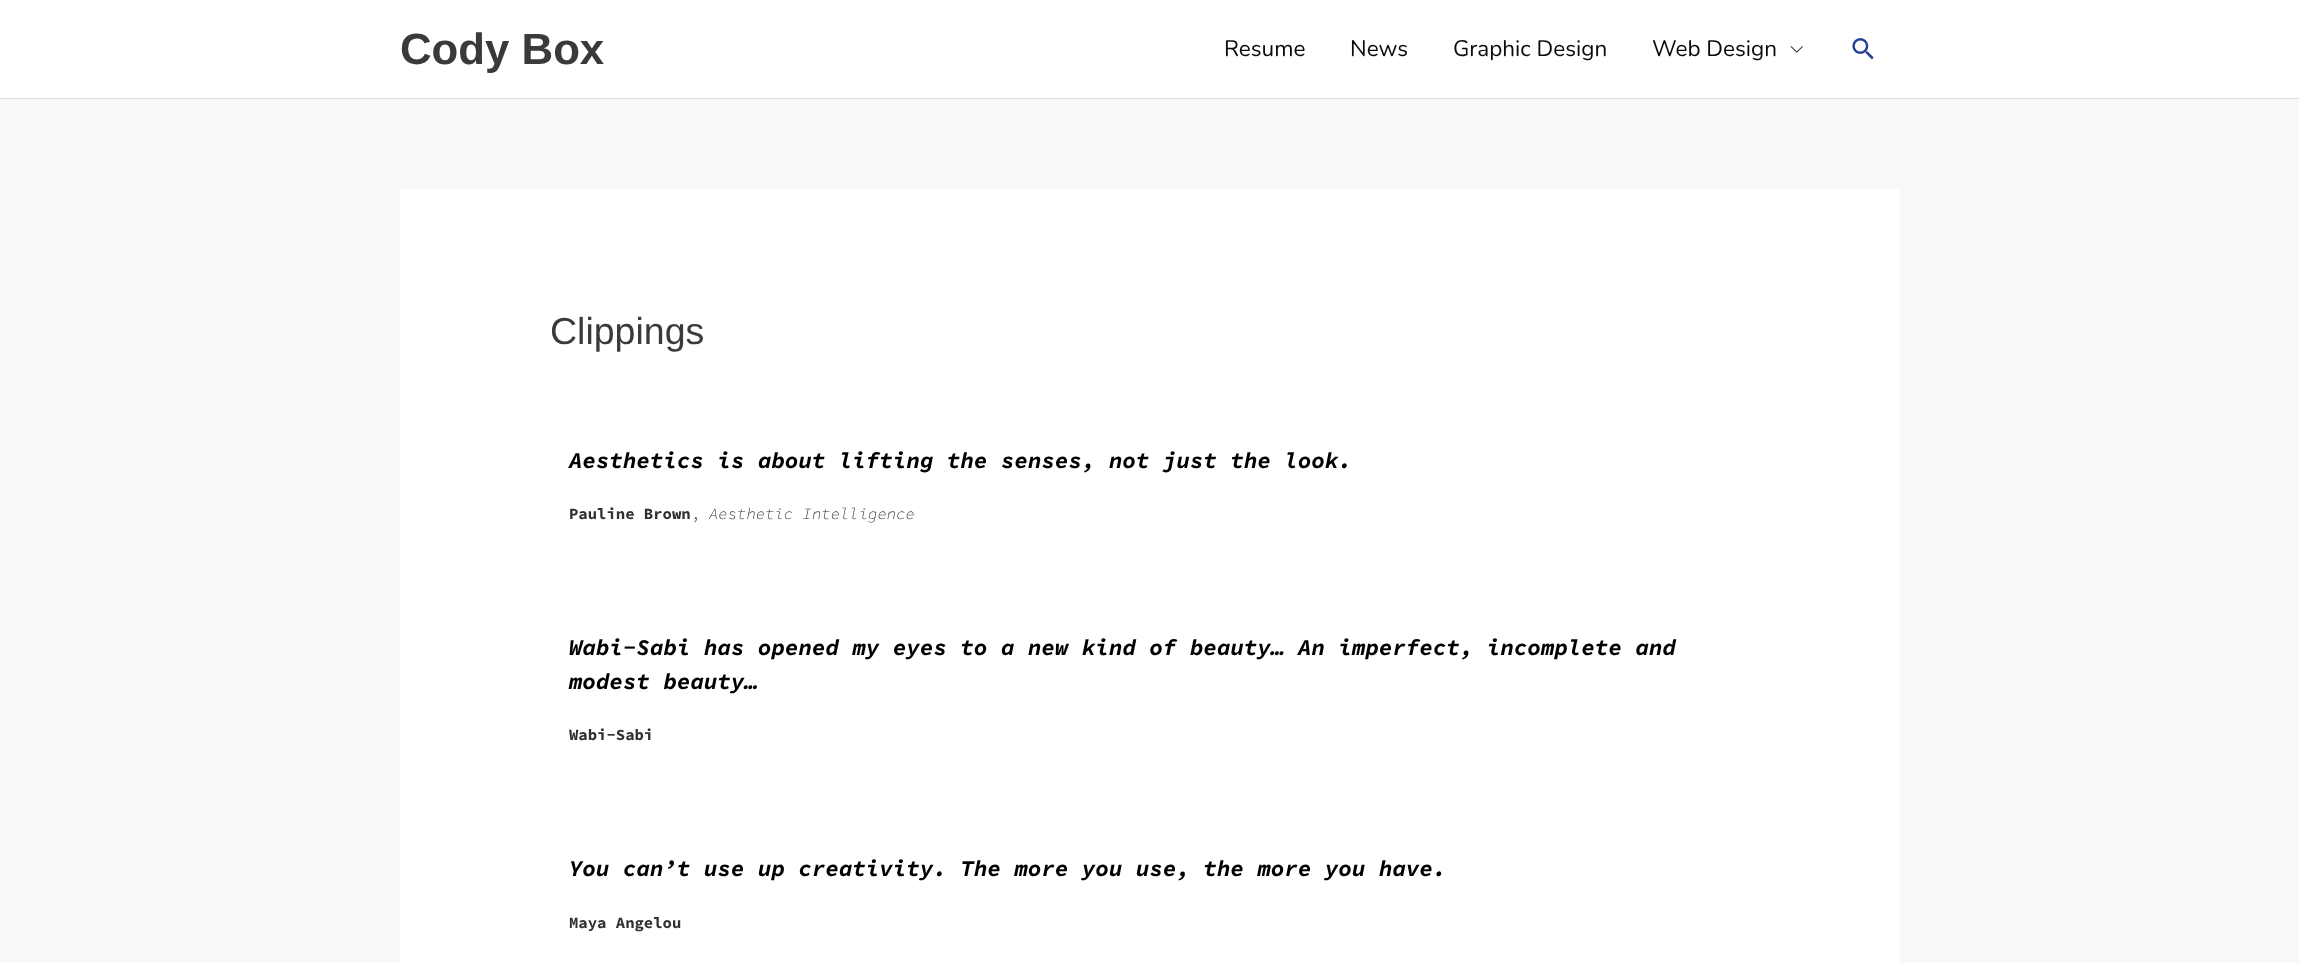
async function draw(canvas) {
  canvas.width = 2299
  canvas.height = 963
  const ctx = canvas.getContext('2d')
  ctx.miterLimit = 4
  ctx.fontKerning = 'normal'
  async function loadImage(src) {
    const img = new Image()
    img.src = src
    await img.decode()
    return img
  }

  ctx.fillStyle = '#f9f9f9'
  ctx.fillRect(0, 0, 2299, 963)
  ctx.fillStyle = '#fff'
  ctx.fillRect(0, 0, 2299, 98)
  ctx.fillStyle = '#ddd'
  ctx.fillRect(0, 98, 2299, 1)
  ctx.font = 'bold 43.75px Liberation Sans'
  ctx.fillStyle = '#3a3a3a'
  ctx.fillText('Cody Box', 400, 64)
  ctx.font = '200 22.5px Nunito'
  ctx.fillStyle = '#0a0a0a'
  ctx.fillText('Resume', 1224, 56)
  ctx.fillText('News', 1350, 56)
  ctx.fillText('Graphic Design', 1453, 56)
  ctx.fillText('Web Design', 1652, 56)
  ctx.drawImage(await loadImage('image0.png'), 1790, 46, 13, 7)
  ctx.drawImage(await loadImage('image1.png'), 1852, 38, 22, 22)
  ctx.fillStyle = '#fff'
  ctx.fillRect(400, 189, 1500, 774)
  ctx.font = '37.5px Liberation Sans'
  ctx.fillStyle = '#3a3a3a'
  ctx.fillText('Clippings', 550, 344)
  ctx.font = 'italic bold 22.5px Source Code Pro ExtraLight'
  ctx.fillStyle = '#000'
  ctx.fillText('Aesthetics is about lifting the senses, not just the look.', 569, 468)
  ctx.font = 'bold 15.6px Source Code Pro ExtraLight'
  ctx.fillStyle = '#313131'
  ctx.fillText('Pauline Brown', 569, 519)
  ctx.font = '300 15.6px Source Code Pro ExtraLight'
  ctx.fillText(',', 691, 519)
  ctx.font = 'italic 300 15.6px Source Code Pro ExtraLight'
  ctx.fillText('Aesthetic Intelligence', 709, 519)
  ctx.font = 'italic bold 22.5px Source Code Pro ExtraLight'
  ctx.fillStyle = '#000'
  ctx.fillText('Wabi-Sabi has opened my eyes to a new kind of beauty… An imperfect, incomplete and', 569, 655)
  ctx.fillText('modest beauty…', 569, 689)
  ctx.font = 'bold 15.6px Source Code Pro ExtraLight'
  ctx.fillStyle = '#313131'
  ctx.fillText('Wabi-Sabi', 569, 740)
  ctx.font = 'italic bold 22.5px Source Code Pro ExtraLight'
  ctx.fillStyle = '#000'
  ctx.fillText('You can’t use up creativity. The more you use, the more you have.', 569, 876)
  ctx.font = 'bold 15.6px Source Code Pro ExtraLight'
  ctx.fillStyle = '#313131'
  ctx.fillText('Maya Angelou', 569, 928)
}

draw(document.querySelector('canvas'))
